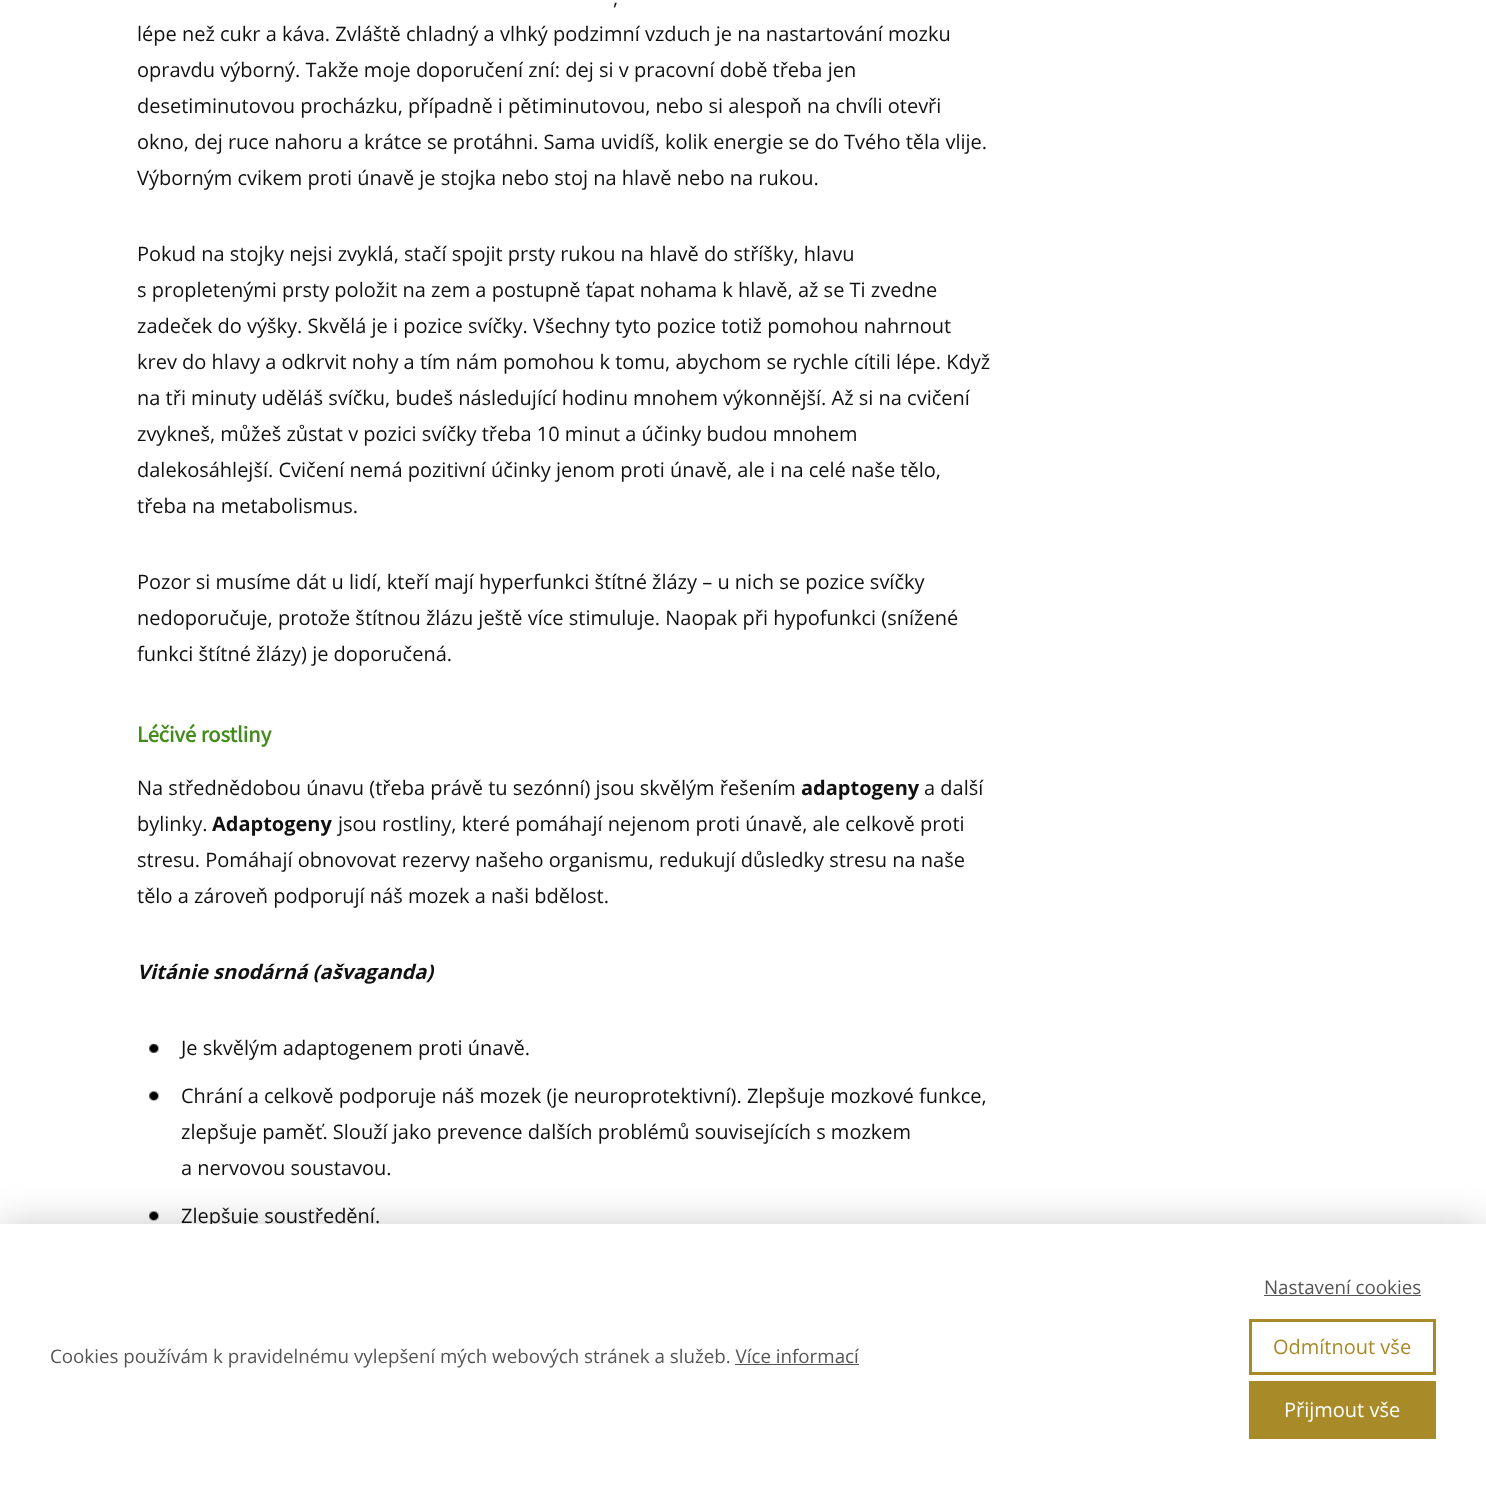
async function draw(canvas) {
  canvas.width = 1486
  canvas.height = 1488
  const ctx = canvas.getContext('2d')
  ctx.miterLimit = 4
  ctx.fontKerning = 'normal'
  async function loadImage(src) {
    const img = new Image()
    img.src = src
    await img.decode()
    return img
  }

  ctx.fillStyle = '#fff'
  ctx.fillRect(0, 0, 1486, 1488)
  ctx.font = '20px Open Sans'
  ctx.fillStyle = '#111'
  ctx.fillText(',', 613, 5)
  ctx.fillText('lépe než cukr a káva. Zvláště chladný a vlhký podzimní vzduch je na nastartování mozku', 137, 41)
  ctx.fillText('opravdu výborný. Takže moje doporučení zní: dej si v pracovní době třeba jen', 137, 77)
  ctx.fillText('desetiminutovou procházku, případně i pětiminutovou, nebo si alespoň na chvíli otevři', 137, 113)
  ctx.fillText('okno, dej ruce nahoru a krátce se protáhni. Sama uvidíš, kolik energie se do Tvého těla vlije.', 137, 149)
  ctx.fillText('Výborným cvikem proti únavě je stojka nebo stoj na hlavě nebo na rukou.', 137, 185)
  ctx.fillText('Pokud na stojky nejsi zvyklá, stačí spojit prsty rukou na hlavě do stříšky, hlavu', 137, 261)
  ctx.fillText('s propletenými prsty položit na zem a postupně ťapat nohama k hlavě, až se Ti zvedne', 137, 297)
  ctx.fillText('zadeček do výšky. Skvělá je i pozice svíčky. Všechny tyto pozice totiž pomohou nahrnout', 137, 333)
  ctx.fillText('krev do hlavy a odkrvit nohy a tím nám pomohou k tomu, abychom se rychle cítili lépe. Když', 137, 369)
  ctx.fillText('na tři minuty uděláš svíčku, budeš následující hodinu mnohem výkonnější. Až si na cvičení', 137, 405)
  ctx.fillText('zvykneš, můžeš zůstat v pozici svíčky třeba 10 minut a účinky budou mnohem', 137, 441)
  ctx.fillText('dalekosáhlejší. Cvičení nemá pozitivní účinky jenom proti únavě, ale i na celé naše tělo,', 137, 477)
  ctx.fillText('třeba na metabolismus.', 137, 513)
  ctx.fillText('Pozor si musíme dát u lidí, kteří mají hyperfunkci štítné žlázy – u nich se pozice svíčky', 137, 589)
  ctx.fillText('nedoporučuje, protože štítnou žlázu ještě více stimuluje. Naopak při hypofunkci (snížené', 137, 625)
  ctx.fillText('funkci štítné žlázy) je doporučená.', 137, 661)
  ctx.font = 'bold 22.5px Source Sans Pro'
  ctx.fillStyle = '#438c1c'
  ctx.fillText('Léčivé rostliny', 137, 742)
  ctx.font = '20px Open Sans'
  ctx.fillStyle = '#111'
  ctx.fillText('Na střednědobou únavu (třeba právě tu sezónní) jsou skvělým řešením', 137, 795)
  ctx.font = 'bold 20px Open Sans'
  ctx.fillText('adaptogeny', 801, 795)
  ctx.font = '20px Open Sans'
  ctx.fillText('a další', 924, 795)
  ctx.fillText('bylinky.', 137, 831)
  ctx.font = 'bold 20px Open Sans'
  ctx.fillText('Adaptogeny', 212, 831)
  ctx.font = '20px Open Sans'
  ctx.fillText('jsou rostliny, které pomáhají nejenom proti únavě, ale celkově proti', 338, 831)
  ctx.fillText('stresu. Pomáhají obnovovat rezervy našeho organismu, redukují důsledky stresu na naše', 137, 867)
  ctx.fillText('tělo a zároveň podporují náš mozek a naši bdělost.', 137, 903)
  ctx.font = 'italic bold 20px Open Sans'
  ctx.fillText('Vitánie snodárná (ašvaganda)', 137, 979)
  ctx.drawImage(await loadImage('image0.png'), 149, 1043, 10, 10)
  ctx.font = '20px Open Sans'
  ctx.fillText('Je skvělým adaptogenem proti únavě.', 181, 1055)
  ctx.drawImage(await loadImage('image1.png'), 149, 1091, 10, 10)
  ctx.fillText('Chrání a celkově podporuje náš mozek (je neuroprotektivní). Zlepšuje mozkové funkce,', 181, 1103)
  ctx.fillText('zlepšuje paměť. Slouží jako prevence dalších problémů souvisejících s mozkem', 181, 1139)
  ctx.fillText('a nervovou soustavou.', 181, 1175)
  ctx.drawImage(await loadImage('image1.png'), 149, 1211, 10, 10)
  ctx.fillText('Zlepšuje soustředění.', 181, 1223)
  ctx.fillStyle = '#00000033'
  ctx.filter = 'blur(19px)'
  ctx.beginPath()
  ctx.rect(0, 1224, 1486, 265)
  ctx.fill()
  ctx.filter = 'none'
  ctx.fillStyle = '#fff'
  ctx.fillRect(0, 1224, 1486, 264)
  ctx.font = '18.75px Open Sans'
  ctx.fillStyle = '#555'
  ctx.fillText('Cookies používám k pravidelnému vylepšení mých webových stránek a služeb. Více informací', 50, 1363)
  ctx.fillRect(735, 1364, 124, 1)
  ctx.fillText('Nastavení cookies', 1264, 1294)
  ctx.fillRect(1264, 1295, 157, 1)
  ctx.strokeStyle = '#a88a28'
  ctx.lineWidth = 3
  ctx.strokeRect(1250.5, 1320.5, 184, 53)
  ctx.font = '20px Open Sans'
  ctx.fillStyle = '#a88a28'
  ctx.fillText('Odmítnout vše', 1273, 1354)
  ctx.fillRect(1249, 1381, 187, 58)
  ctx.fillStyle = '#fff'
  ctx.fillText('Přijmout vše', 1284, 1417)
}

draw(document.querySelector('canvas'))
